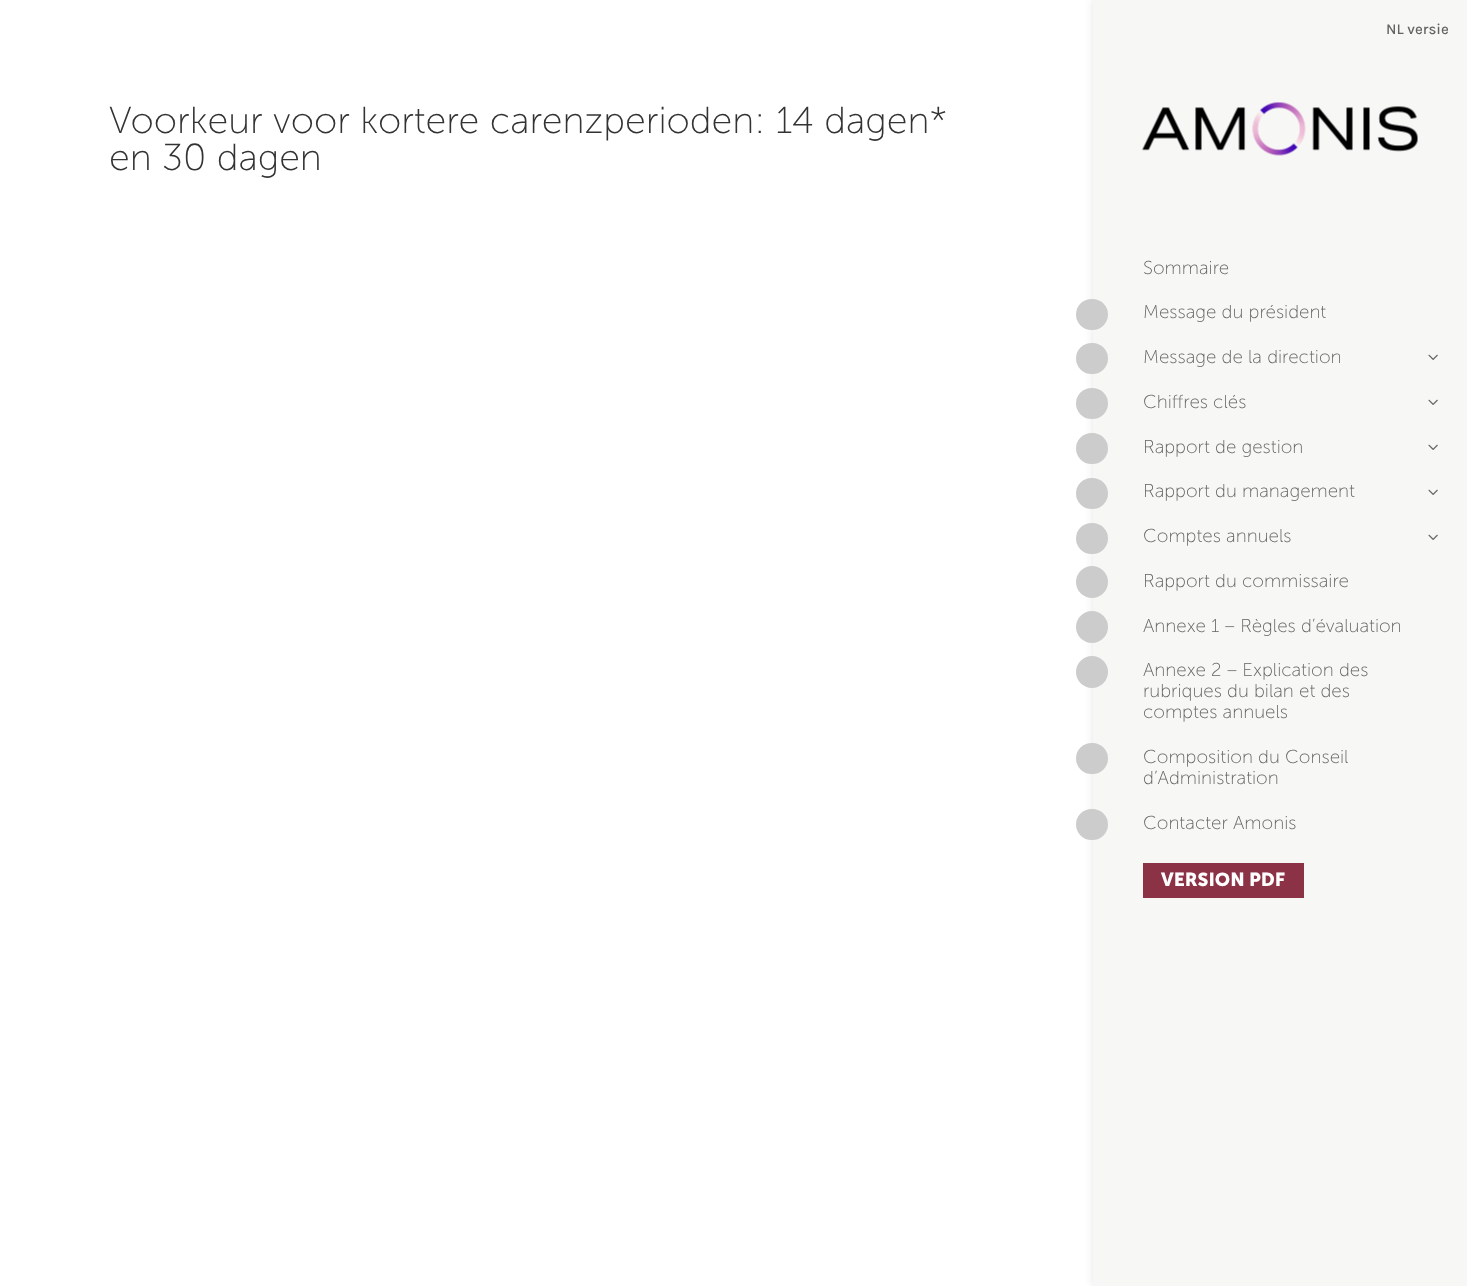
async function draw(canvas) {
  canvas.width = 1467
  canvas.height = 1286
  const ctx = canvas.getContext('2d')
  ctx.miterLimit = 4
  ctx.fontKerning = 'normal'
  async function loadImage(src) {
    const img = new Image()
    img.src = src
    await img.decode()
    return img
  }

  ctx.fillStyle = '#fff'
  ctx.fillRect(0, 0, 1467, 1286)
  ctx.fillStyle = '#0000001a'
  ctx.filter = 'blur(4.5px)'
  ctx.beginPath()
  ctx.rect(1093, 0, 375, 1286)
  ctx.fill()
  ctx.filter = 'none'
  ctx.fillStyle = '#f7f7f5'
  ctx.fillRect(1093, 0, 374, 1286)
  ctx.font = '500 15px Karla'
  ctx.fillStyle = '#636362'
  ctx.fillText('NL versie', 1386, 34)
  ctx.font = '300 37.5px "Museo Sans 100"'
  ctx.fillStyle = '#333'
  ctx.fillText('Voorkeur voor kortere carenzperioden: 14 dagen*', 109, 133)
  ctx.fillText('en 30 dagen', 109, 170)
  ctx.drawImage(await loadImage('image0.png'), 1142, 102, 276, 54)
  ctx.font = '300 18.75px "Museo Sans 100"'
  ctx.fillStyle = '#636362'
  ctx.fillText('Sommaire', 1143, 274)
  ctx.fillStyle = '#ccc'
  ctx.beginPath()
  ctx.roundRect(1076, 299, 32, 31, 15.5)
  ctx.fill()
  ctx.fillStyle = '#636362'
  ctx.fillText('Message du président', 1143, 318)
  ctx.fillStyle = '#ccc'
  ctx.beginPath()
  ctx.roundRect(1076, 343, 32, 31, 15.5)
  ctx.fill()
  ctx.fillStyle = '#636362'
  ctx.fillText('Message de la direction', 1143, 363)
  ctx.drawImage(await loadImage('image1.png'), 1428, 354, 10, 6)
  ctx.fillStyle = '#ccc'
  ctx.beginPath()
  ctx.roundRect(1076, 388, 32, 31, 15.5)
  ctx.fill()
  ctx.fillStyle = '#636362'
  ctx.fillText('Chiffres clés', 1143, 408)
  ctx.drawImage(await loadImage('image1.png'), 1428, 399, 10, 6)
  ctx.fillStyle = '#ccc'
  ctx.beginPath()
  ctx.roundRect(1076, 433, 32, 31, 15.5)
  ctx.fill()
  ctx.fillStyle = '#636362'
  ctx.fillText('Rapport de gestion', 1143, 453)
  ctx.drawImage(await loadImage('image1.png'), 1428, 444, 10, 6)
  ctx.fillStyle = '#ccc'
  ctx.beginPath()
  ctx.roundRect(1076, 478, 32, 31, 15.5)
  ctx.fill()
  ctx.fillStyle = '#636362'
  ctx.fillText('Rapport du management', 1143, 497)
  ctx.drawImage(await loadImage('image1.png'), 1428, 489, 10, 6)
  ctx.fillStyle = '#ccc'
  ctx.beginPath()
  ctx.roundRect(1076, 523, 32, 31, 15.5)
  ctx.fill()
  ctx.fillStyle = '#636362'
  ctx.fillText('Comptes annuels', 1143, 542)
  ctx.drawImage(await loadImage('image1.png'), 1428, 534, 10, 6)
  ctx.fillStyle = '#ccc'
  ctx.beginPath()
  ctx.arc(1092, 582, 16, 0, 2 * Math.PI)
  ctx.fill()
  ctx.fillStyle = '#636362'
  ctx.fillText('Rapport du commissaire', 1143, 587)
  ctx.fillStyle = '#ccc'
  ctx.beginPath()
  ctx.arc(1092, 627, 16, 0, 2 * Math.PI)
  ctx.fill()
  ctx.fillStyle = '#636362'
  ctx.fillText('Annexe 1 – Règles d’évaluation', 1143, 632)
  ctx.fillStyle = '#ccc'
  ctx.beginPath()
  ctx.arc(1092, 672, 16, 0, 2 * Math.PI)
  ctx.fill()
  ctx.fillStyle = '#636362'
  ctx.fillText('Annexe 2 – Explication des', 1143, 676)
  ctx.fillText('rubriques du bilan et des', 1143, 697)
  ctx.fillText('comptes annuels', 1143, 718)
  ctx.fillStyle = '#ccc'
  ctx.beginPath()
  ctx.roundRect(1076, 743, 32, 31, 15.5)
  ctx.fill()
  ctx.fillStyle = '#636362'
  ctx.fillText('Composition du Conseil', 1143, 763)
  ctx.fillText('d’Administration', 1143, 784)
  ctx.fillStyle = '#ccc'
  ctx.beginPath()
  ctx.roundRect(1076, 809, 32, 31, 15.5)
  ctx.fill()
  ctx.fillStyle = '#636362'
  ctx.fillText('Contacter Amonis', 1143, 829)
  ctx.fillStyle = '#8c3246'
  ctx.fillRect(1143, 863, 161, 35)
  ctx.font = 'bold 18.75px "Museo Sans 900"'
  ctx.fillStyle = '#fff'
  ctx.fillText('VERSION PDF', 1161, 886)
}

draw(document.querySelector('canvas'))
